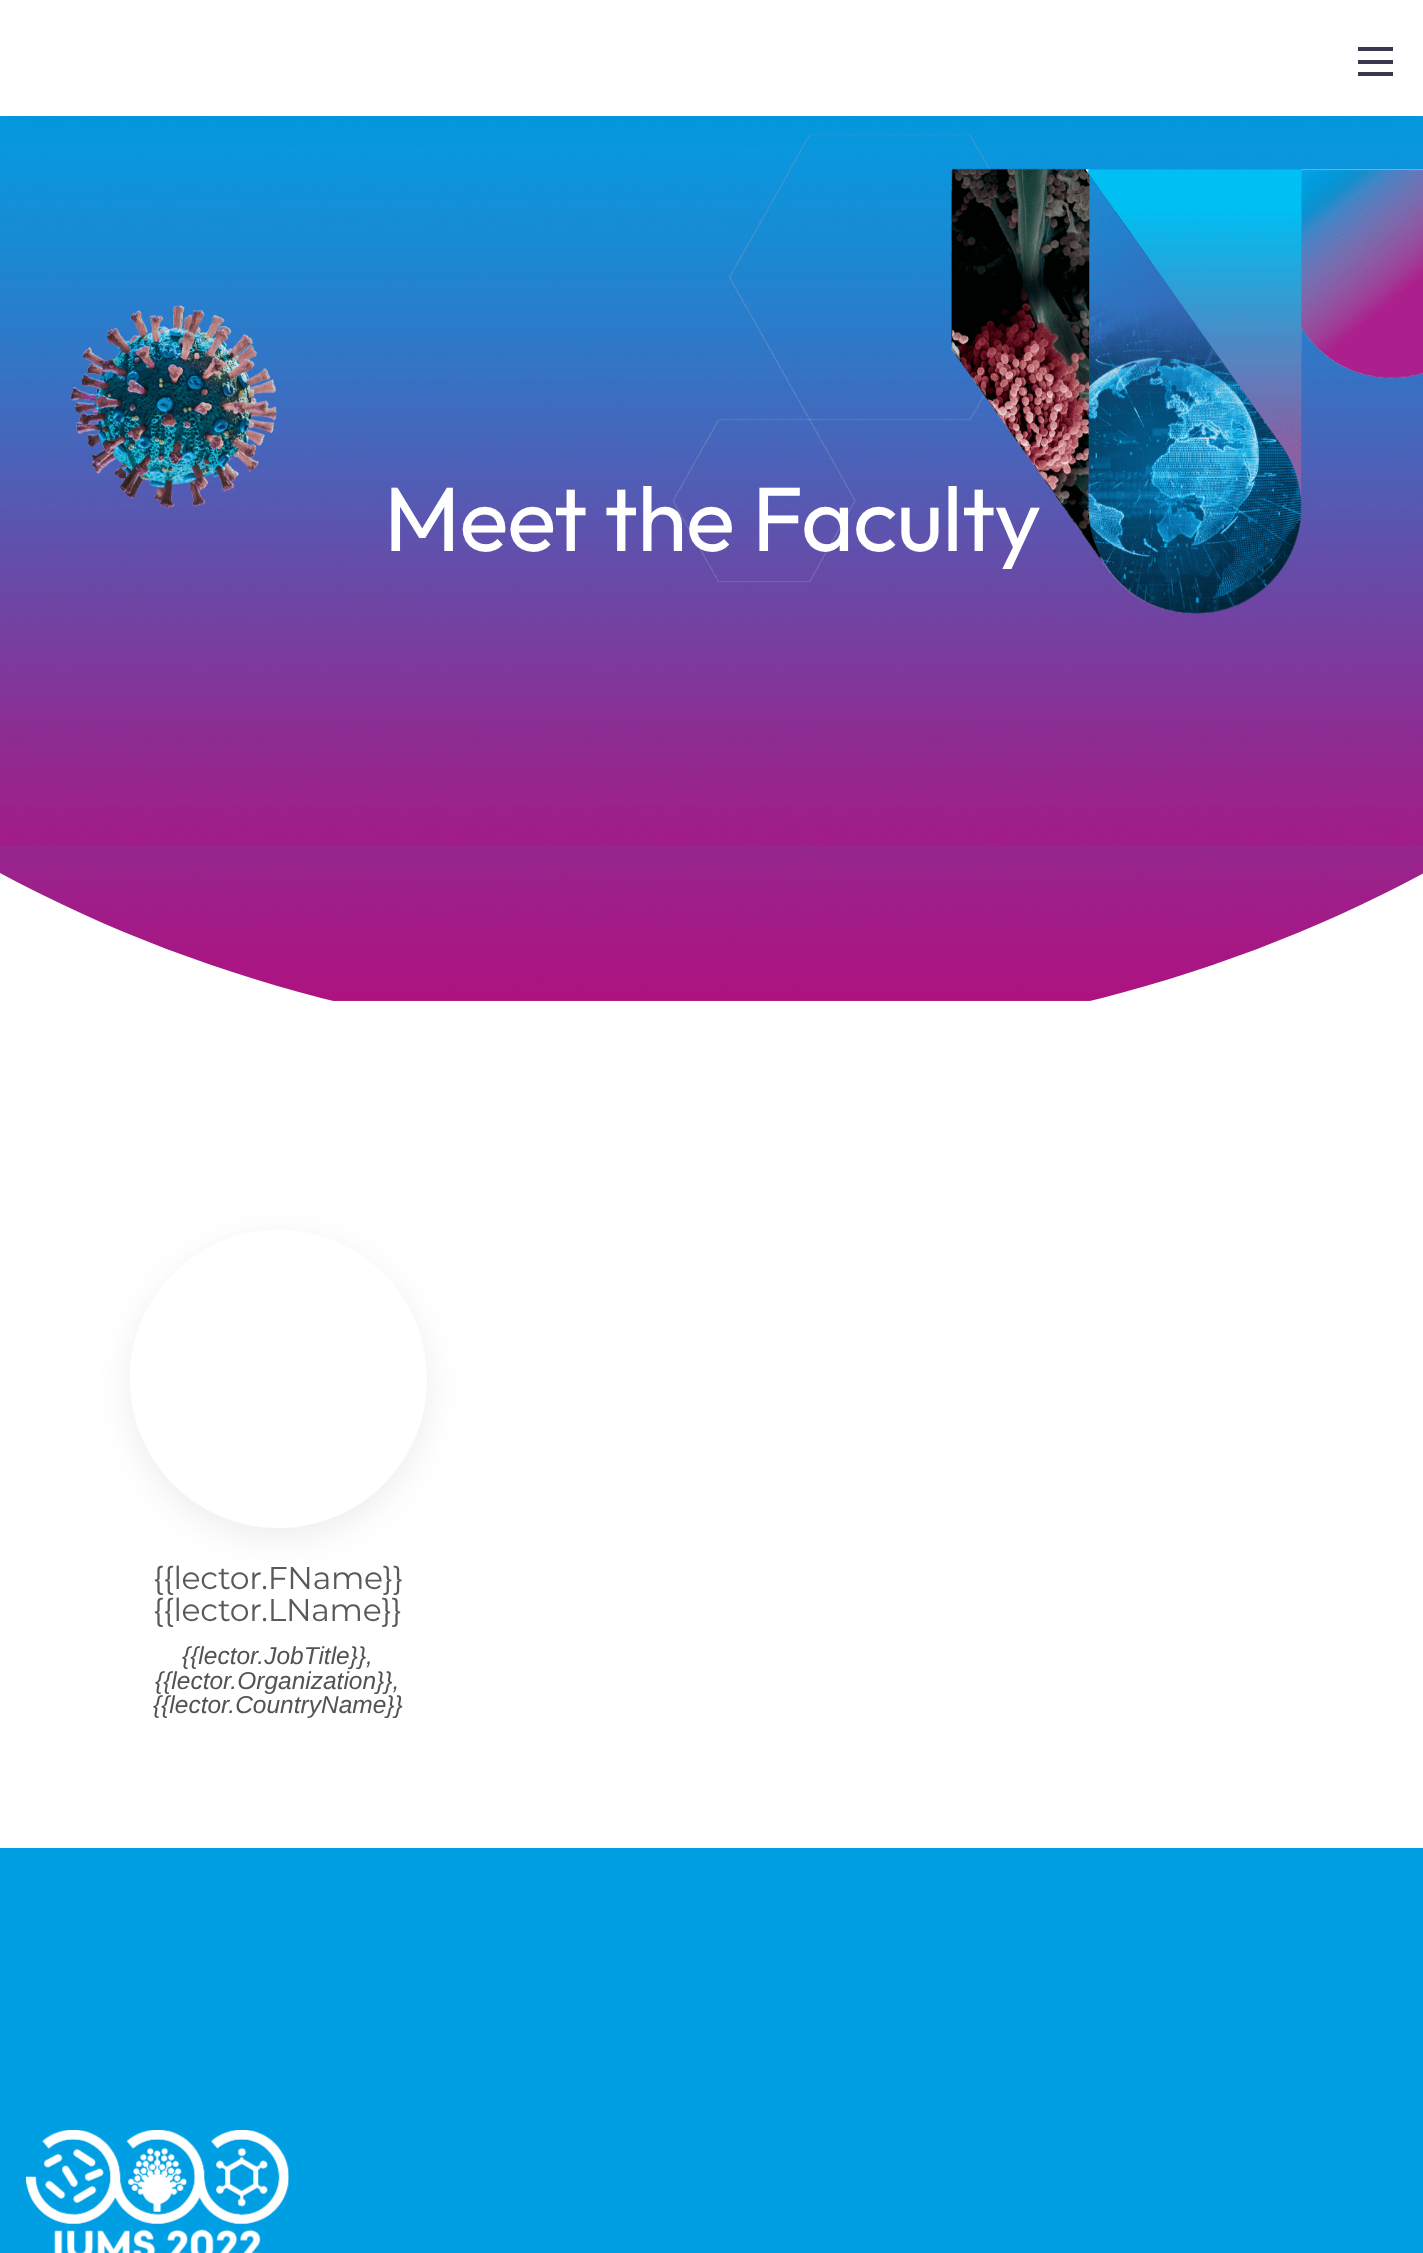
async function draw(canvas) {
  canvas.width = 1423
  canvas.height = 2253
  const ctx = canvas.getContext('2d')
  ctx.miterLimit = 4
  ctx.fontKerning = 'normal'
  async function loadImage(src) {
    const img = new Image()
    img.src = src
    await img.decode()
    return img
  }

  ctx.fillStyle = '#fff'
  ctx.fillRect(0, 0, 1423, 2253)
  ctx.drawImage(await loadImage('image0.png'), 0, 844, 1423, 157)
  ctx.drawImage(await loadImage('image1.png'), 0, 116, 1423, 729)
  ctx.fillStyle = '#0000000d'
  ctx.filter = 'blur(17.5px)'
  ctx.beginPath()
  ctx.rect(0, 0, 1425, 116)
  ctx.fill()
  ctx.filter = 'none'
  ctx.fillStyle = '#fff'
  ctx.fillRect(0, 0, 1423, 116)
  ctx.fillStyle = '#39364e'
  ctx.fillRect(1358, 72, 35, 4)
  ctx.fillRect(1358, 47, 35, 4)
  ctx.fillRect(1358, 60, 35, 4)
  ctx.letterSpacing = '-0.9px'
  ctx.font = '100 91px Outfit'
  ctx.fillStyle = '#fff'
  ctx.fillText('Meet the Faculty', 384, 551)
  ctx.save()
  ctx.beginPath()
  ctx.rect(0, 873, 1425, 174)
  ctx.clip()
  ctx.beginPath()
  ctx.moveTo(0, 1048)
  ctx.lineTo(0, 873)
  ctx.bezierCurveTo(431, 1105, 993, 1105, 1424, 873)
  ctx.lineTo(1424, 1048)
  ctx.closePath()
  ctx.fill()
  ctx.restore()
  ctx.save()
  ctx.beginPath()
  ctx.moveTo(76, 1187)
  ctx.lineTo(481, 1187)
  ctx.lineTo(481, 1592)
  ctx.lineTo(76, 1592)
  ctx.closePath()
  ctx.moveTo(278.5, 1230)
  ctx.bezierCurveTo(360.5, 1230, 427, 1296.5, 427, 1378.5)
  ctx.lineTo(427, 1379.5)
  ctx.bezierCurveTo(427, 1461.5, 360.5, 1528, 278.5, 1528)
  ctx.bezierCurveTo(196.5, 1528, 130, 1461.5, 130, 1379.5)
  ctx.lineTo(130, 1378.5)
  ctx.bezierCurveTo(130, 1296.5, 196.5, 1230, 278.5, 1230)
  ctx.closePath()
  ctx.clip('evenodd')
  ctx.fillStyle = '#00000012'
  ctx.filter = 'blur(17.5px)'
  ctx.beginPath()
  ctx.roundRect(130, 1241, 297, 297, 148.5)
  ctx.fill()
  ctx.filter = 'none'
  ctx.restore()
  ctx.letterSpacing = '-0.3px'
  ctx.font = '31.5px Montserrat'
  ctx.fillStyle = '#58595b'
  ctx.fillText('{{lector.FName}}', 153, 1589)
  ctx.fillText('{{lector.LName}}', 153, 1621)
  ctx.letterSpacing = '0px'
  ctx.font = 'italic 24.5px Liberation Sans'
  ctx.fillStyle = '#545253'
  ctx.fillText('{{lector.JobTitle}},', 182, 1664)
  ctx.fillText('{{lector.Organization}},', 155, 1689)
  ctx.fillText('{{lector.CountryName}}', 153, 1713)
  ctx.fillStyle = '#009fe3'
  ctx.fillRect(0, 1848, 1423, 405)
  ctx.drawImage(await loadImage('image2.png'), 26, 2130, 263, 123)
}

draw(document.querySelector('canvas'))
